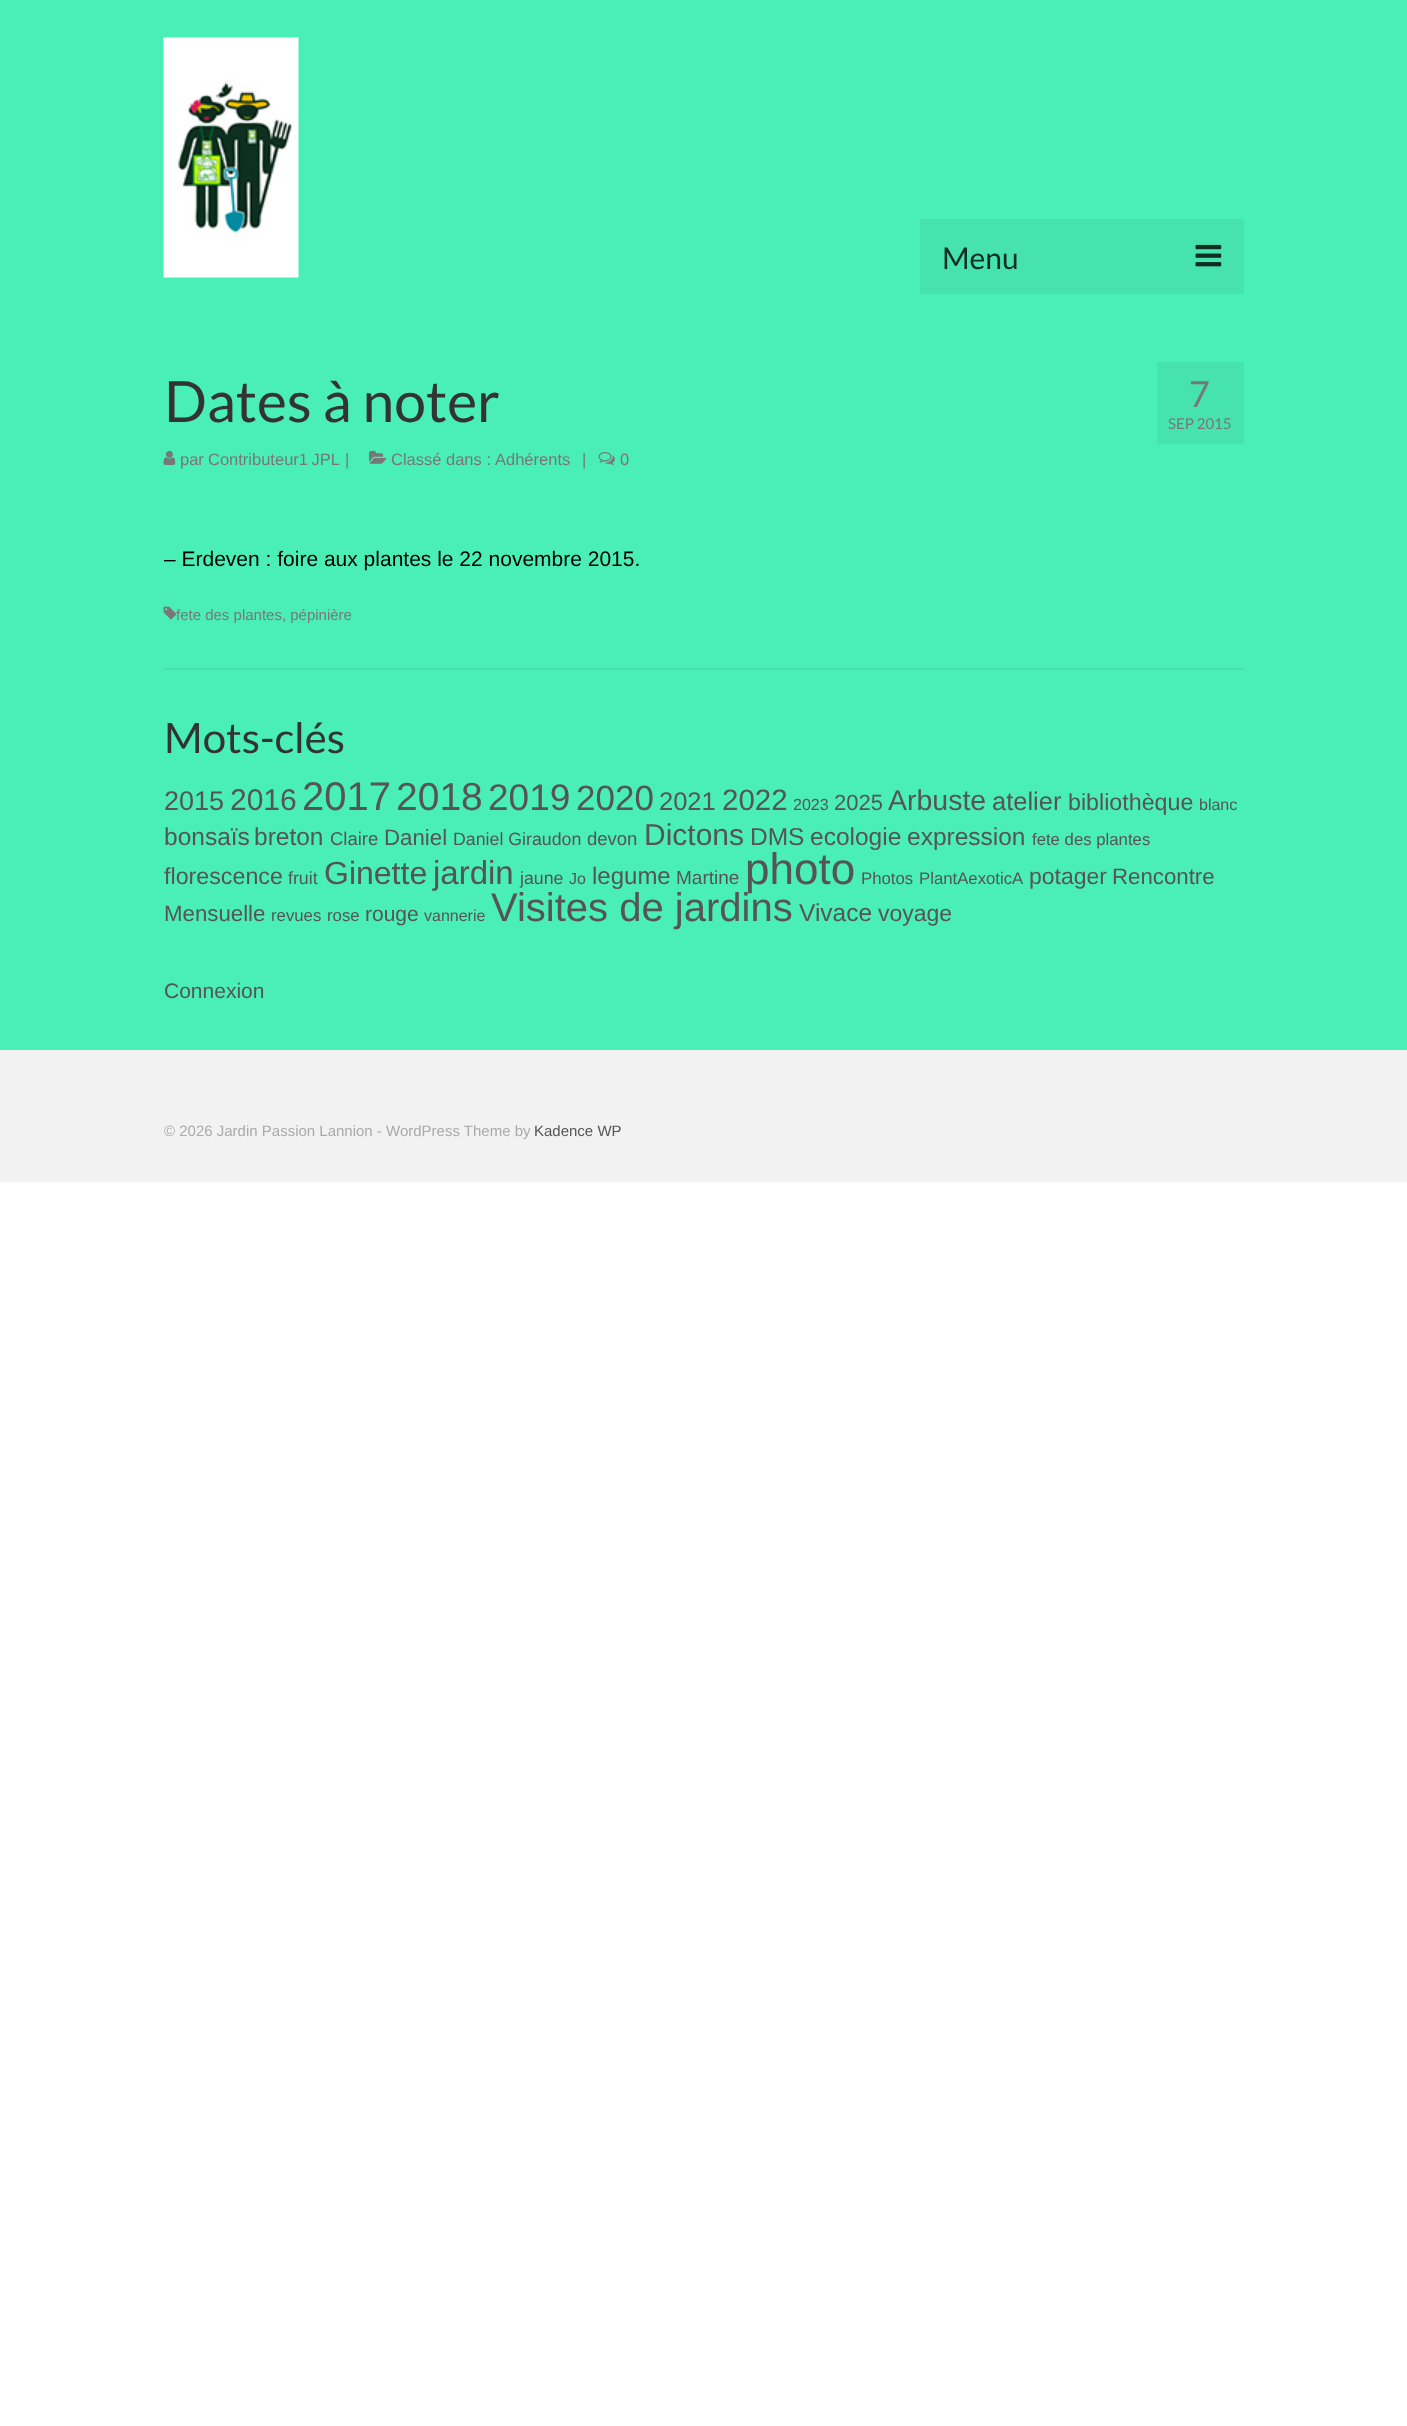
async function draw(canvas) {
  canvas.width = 1407
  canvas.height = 2426
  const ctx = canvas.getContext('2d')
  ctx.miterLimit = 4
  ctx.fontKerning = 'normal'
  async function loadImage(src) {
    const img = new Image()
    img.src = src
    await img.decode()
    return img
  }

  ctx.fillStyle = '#fff'
  ctx.fillRect(0, 0, 1407, 2426)
  ctx.fillStyle = '#4aefb8'
  ctx.fillRect(0, 0, 1407, 1050)
  ctx.drawImage(await loadImage('image0.png'), 163, 37, 136, 241)
  ctx.fillStyle = '#46e3af'
  ctx.fillRect(920, 219, 324, 75)
  ctx.font = '30px Lato'
  ctx.fillStyle = '#0e2d23'
  ctx.fillText('Menu', 942, 269)
  ctx.drawImage(await loadImage('image1.png'), 1195, 244, 27, 23)
  ctx.font = '57px Lato'
  ctx.fillStyle = '#333'
  ctx.fillText('Dates à noter', 164, 422)
  ctx.drawImage(await loadImage('image2.png'), 163, 450, 13, 15)
  ctx.font = '16.5px Liberation Sans'
  ctx.fillStyle = '#777'
  ctx.fillText('par', 180, 465)
  ctx.wordSpacing = '-1px'
  ctx.fillText('Contributeur1 JPL', 208, 465)
  ctx.wordSpacing = '0px'
  ctx.fillText('|', 345, 465)
  ctx.drawImage(await loadImage('image3.png'), 369, 450, 18, 14)
  ctx.fillText('Classé dans :', 391, 465)
  ctx.fillText('Adhérents', 495, 465)
  ctx.fillText('|', 582, 465)
  ctx.drawImage(await loadImage('image4.png'), 598, 452, 17, 13)
  ctx.fillText('0', 620, 465)
  ctx.fillStyle = '#46e3af'
  ctx.fillRect(1157, 362, 87, 82)
  ctx.font = '36px Lato'
  ctx.fillStyle = '#777'
  ctx.fillText('7', 1189, 407)
  ctx.font = '15px Lato'
  ctx.fillText('SEP 2015', 1168, 429)
  ctx.font = '21px Liberation Sans'
  ctx.fillStyle = '#000'
  ctx.fillText('– Erdeven : foire aux plantes le 22 novembre 2015.', 164, 566)
  ctx.fillStyle = '#46e3af'
  ctx.fillRect(164, 668, 1080, 2)
  ctx.drawImage(await loadImage('image5.png'), 163, 606, 14, 14)
  ctx.font = '15px Liberation Sans'
  ctx.fillStyle = '#777'
  ctx.fillText('fete des plantes, pépinière', 176, 620)
  ctx.font = '42px Lato'
  ctx.fillStyle = '#333'
  ctx.fillText('Mots-clés', 164, 753)
  ctx.font = '27px Liberation Sans'
  ctx.fillStyle = '#555'
  ctx.fillText('2015', 164, 810)
  ctx.font = '30px Liberation Sans'
  ctx.fillText('2016', 230, 810)
  ctx.font = '40px Liberation Sans'
  ctx.fillText('2017', 302, 810)
  ctx.font = '39px Liberation Sans'
  ctx.fillText('2018', 396, 810)
  ctx.font = '37px Liberation Sans'
  ctx.fillText('2019', 488, 810)
  ctx.font = '35px Liberation Sans'
  ctx.fillText('2020', 576, 810)
  ctx.font = '25.5px Liberation Sans'
  ctx.fillText('2021', 659, 810)
  ctx.font = '29.5px Liberation Sans'
  ctx.fillText('2022', 722, 810)
  ctx.font = '16px Liberation Sans'
  ctx.fillText('2023', 793, 810)
  ctx.font = '22px Liberation Sans'
  ctx.fillText('2025', 834, 810)
  ctx.font = '28.5px Liberation Sans'
  ctx.fillText('Arbuste', 888, 810)
  ctx.font = '25.5px Liberation Sans'
  ctx.fillText('atelier', 992, 810)
  ctx.font = '23.25px Liberation Sans'
  ctx.fillText('bibliothèque', 1068, 810)
  ctx.font = '16px Liberation Sans'
  ctx.fillText('blanc', 1199, 810)
  ctx.font = '24.5px Liberation Sans'
  ctx.fillText('bonsaïs', 164, 845)
  ctx.fillText('breton', 254, 845)
  ctx.font = '18.5px Liberation Sans'
  ctx.fillText('Claire', 330, 845)
  ctx.font = '22.25px Liberation Sans'
  ctx.fillText('Daniel', 384, 845)
  ctx.font = '17.75px Liberation Sans'
  ctx.fillText('Daniel Giraudon', 453, 845)
  ctx.font = '18.5px Liberation Sans'
  ctx.fillText('devon', 587, 845)
  ctx.font = '30px Liberation Sans'
  ctx.fillText('Dictons', 644, 845)
  ctx.font = '24.5px Liberation Sans'
  ctx.fillText('DMS', 750, 845)
  ctx.fillText('ecologie', 810, 845)
  ctx.fillText('expression', 907, 845)
  ctx.font = '16.75px Liberation Sans'
  ctx.fillText('fete des plantes', 1032, 845)
  ctx.font = '23.25px Liberation Sans'
  ctx.fillText('florescence', 164, 884)
  ctx.font = '17.75px Liberation Sans'
  ctx.fillText('fruit', 288, 884)
  ctx.font = '32px Liberation Sans'
  ctx.fillText('Ginette', 324, 884)
  ctx.font = '33px Liberation Sans'
  ctx.fillText('jardin', 433, 884)
  ctx.font = '17.75px Liberation Sans'
  ctx.fillText('jaune', 520, 884)
  ctx.font = '16px Liberation Sans'
  ctx.fillText('Jo', 569, 884)
  ctx.font = '24px Liberation Sans'
  ctx.fillText('legume', 592, 884)
  ctx.font = '19px Liberation Sans'
  ctx.fillText('Martine', 676, 884)
  ctx.font = '44px Liberation Sans'
  ctx.fillText('photo', 745, 884)
  ctx.font = '16.75px Liberation Sans'
  ctx.fillText('Photos', 861, 884)
  ctx.fillText('PlantAexoticA', 919, 884)
  ctx.font = '23px Liberation Sans'
  ctx.fillText('potager', 1029, 884)
  ctx.font = '22.25px Liberation Sans'
  ctx.fillText('Rencontre', 1112, 884)
  ctx.fillText('Mensuelle', 164, 921)
  ctx.font = '16.75px Liberation Sans'
  ctx.fillText('revues', 271, 921)
  ctx.fillText('rose', 327, 921)
  ctx.font = '21px Liberation Sans'
  ctx.fillText('rouge', 365, 921)
  ctx.font = '16px Liberation Sans'
  ctx.fillText('vannerie', 424, 921)
  ctx.font = '40px Liberation Sans'
  ctx.fillText('Visites de jardins', 491, 921)
  ctx.font = '24.5px Liberation Sans'
  ctx.fillText('Vivace', 799, 921)
  ctx.font = '23px Liberation Sans'
  ctx.fillText('voyage', 878, 921)
  ctx.font = '21px Liberation Sans'
  ctx.fillText('Connexion', 164, 998)
  ctx.fillStyle = '#f2f2f2'
  ctx.fillRect(0, 1050, 1407, 132)
  ctx.font = '15px Liberation Sans'
  ctx.fillStyle = '#aaa'
  ctx.fillText('© 2026 Jardin Passion Lannion - WordPress Theme by', 164, 1136)
  ctx.fillStyle = '#555'
  ctx.fillText('Kadence WP', 534, 1136)
}

draw(document.querySelector('canvas'))
